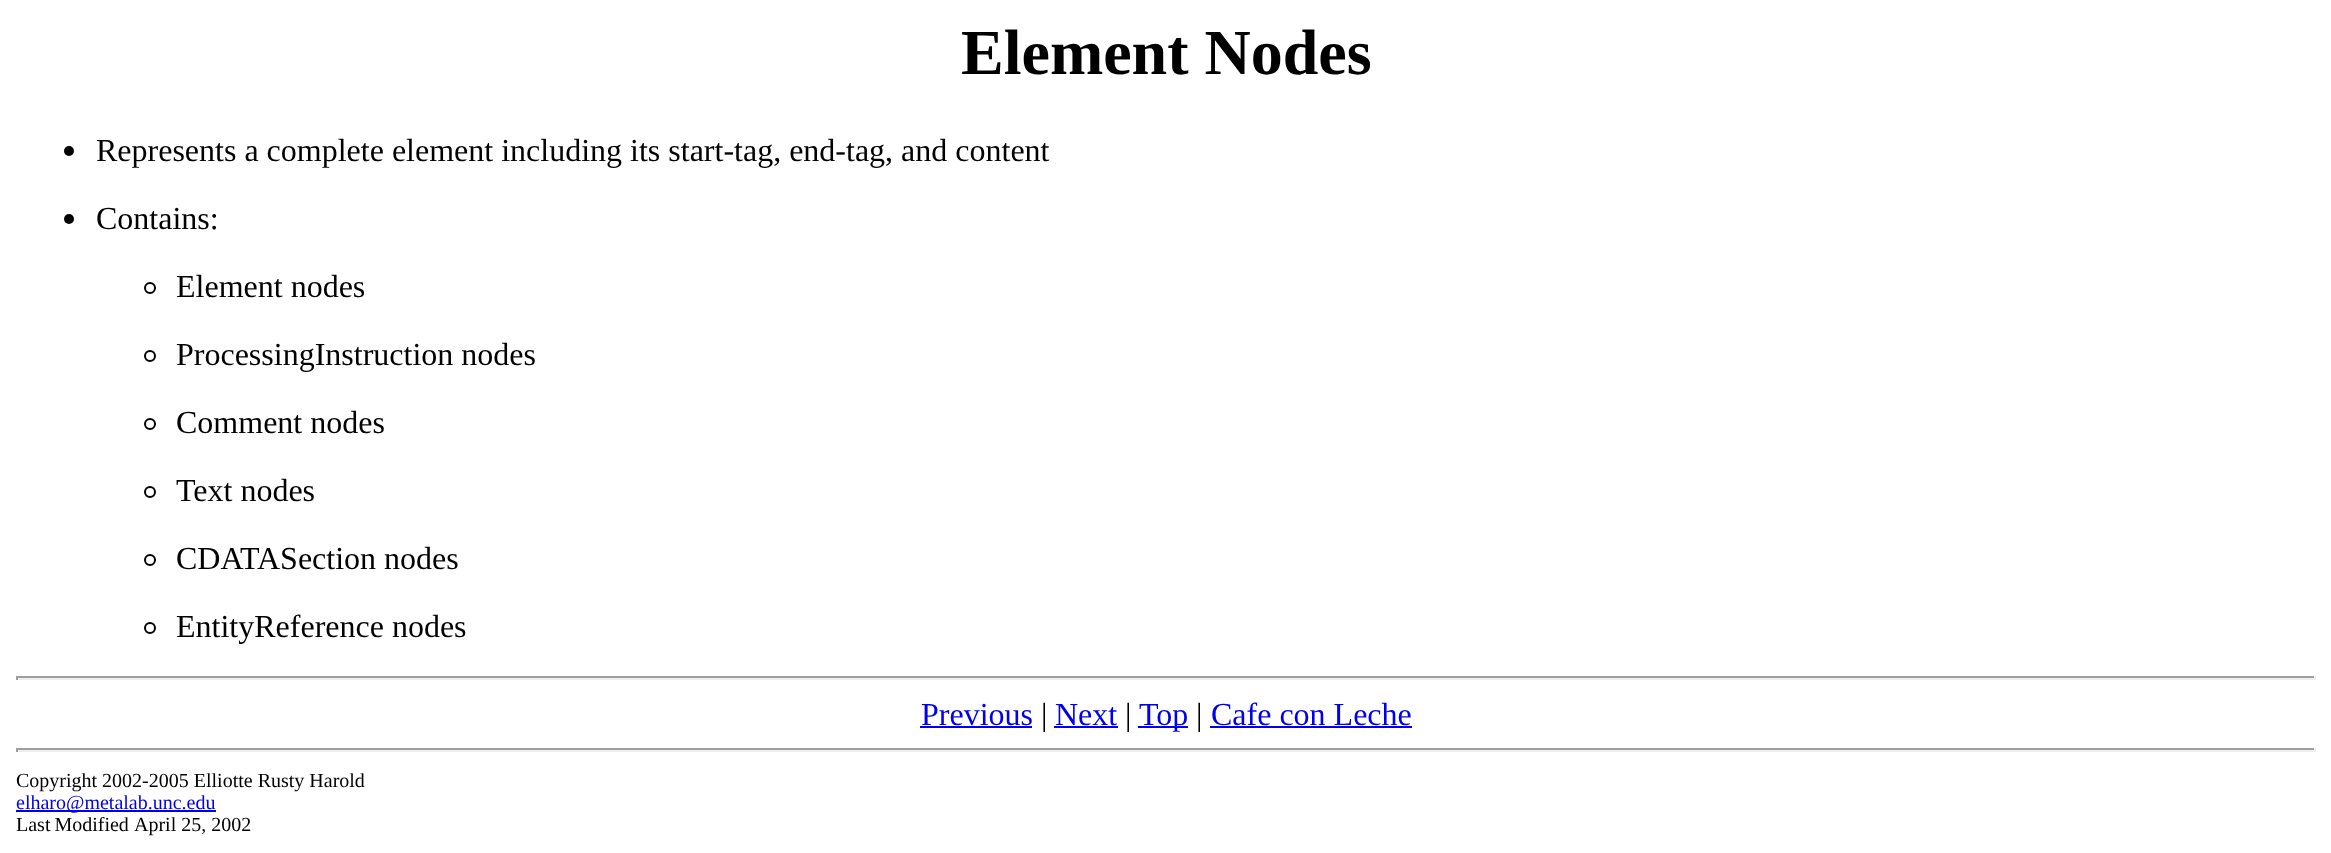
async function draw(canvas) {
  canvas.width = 2331
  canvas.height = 853
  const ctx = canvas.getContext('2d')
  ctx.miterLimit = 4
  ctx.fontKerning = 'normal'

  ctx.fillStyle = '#fff'
  ctx.fillRect(0, 0, 2331, 853)
  ctx.font = 'bold 64px Liberation Serif'
  ctx.fillStyle = '#000'
  ctx.fillText('Element Nodes', 961, 74)
  ctx.beginPath()
  ctx.arc(69, 151, 5, 0, 2 * Math.PI)
  ctx.fill()
  ctx.font = '32px Liberation Serif'
  ctx.fillText('Represents a complete element including its start-tag, end-tag, and content', 96, 161)
  ctx.beginPath()
  ctx.arc(69, 219, 5, 0, 2 * Math.PI)
  ctx.fill()
  ctx.fillText('Contains:', 96, 229)
  ctx.beginPath()
  ctx.arc(150, 288, 5, 0, 2 * Math.PI)
  ctx.strokeStyle = '#000'
  ctx.lineWidth = 2
  ctx.stroke()
  ctx.fillText('Element nodes', 176, 297)
  ctx.beginPath()
  ctx.arc(150, 356, 5, 0, 2 * Math.PI)
  ctx.stroke()
  ctx.fillText('ProcessingInstruction nodes', 176, 365)
  ctx.beginPath()
  ctx.arc(150, 424, 5, 0, 2 * Math.PI)
  ctx.stroke()
  ctx.fillText('Comment nodes', 176, 433)
  ctx.beginPath()
  ctx.arc(150, 492, 5, 0, 2 * Math.PI)
  ctx.stroke()
  ctx.fillText('Text nodes', 176, 501)
  ctx.beginPath()
  ctx.arc(150, 560, 5, 0, 2 * Math.PI)
  ctx.stroke()
  ctx.fillText('CDATASection nodes', 176, 569)
  ctx.beginPath()
  ctx.arc(150, 628, 5, 0, 2 * Math.PI)
  ctx.stroke()
  ctx.fillText('EntityReference nodes', 176, 637)
  ctx.fillStyle = '#9f9f9f'
  ctx.fillRect(16, 676, 2300, 2)
  ctx.fillStyle = '#eee'
  ctx.fillRect(2314, 676, 2, 4)
  ctx.fillRect(16, 678, 2300, 2)
  ctx.fillStyle = '#9f9f9f'
  ctx.fillRect(16, 676, 2, 4)
  ctx.fillStyle = '#00e'
  ctx.fillText('Previous', 921, 725)
  ctx.fillRect(920, 726, 112, 2)
  ctx.fillStyle = '#000'
  ctx.fillText('|', 1041, 725)
  ctx.fillStyle = '#00e'
  ctx.fillText('Next', 1055, 725)
  ctx.fillRect(1054, 726, 64, 2)
  ctx.fillStyle = '#000'
  ctx.fillText('|', 1125, 725)
  ctx.fillStyle = '#00e'
  ctx.fillRect(1138, 726, 50, 2)
  ctx.fillText('Top', 1139, 725)
  ctx.fillStyle = '#000'
  ctx.fillText('|', 1196, 725)
  ctx.fillStyle = '#00e'
  ctx.fillText('Cafe con Leche', 1211, 725)
  ctx.fillRect(1210, 726, 202, 2)
  ctx.fillStyle = '#9f9f9f'
  ctx.fillRect(16, 748, 2300, 2)
  ctx.fillStyle = '#eee'
  ctx.fillRect(2314, 748, 2, 4)
  ctx.fillRect(16, 750, 2300, 2)
  ctx.fillStyle = '#9f9f9f'
  ctx.fillRect(16, 748, 2, 4)
  ctx.font = '20px Liberation Serif'
  ctx.fillStyle = '#000'
  ctx.fillText('Copyright 2002-2005 Elliotte Rusty Harold', 16, 787)
  ctx.fillStyle = '#00e'
  ctx.fillRect(16, 810, 200, 2)
  ctx.fillText('elharo@metalab.unc.edu', 16, 809)
  ctx.wordSpacing = '-1px'
  ctx.fillStyle = '#000'
  ctx.fillText('Last Modified', 16, 831)
  ctx.wordSpacing = '0px'
  ctx.fillText('April 25, 2002', 134, 831)
}

draw(document.querySelector('canvas'))
